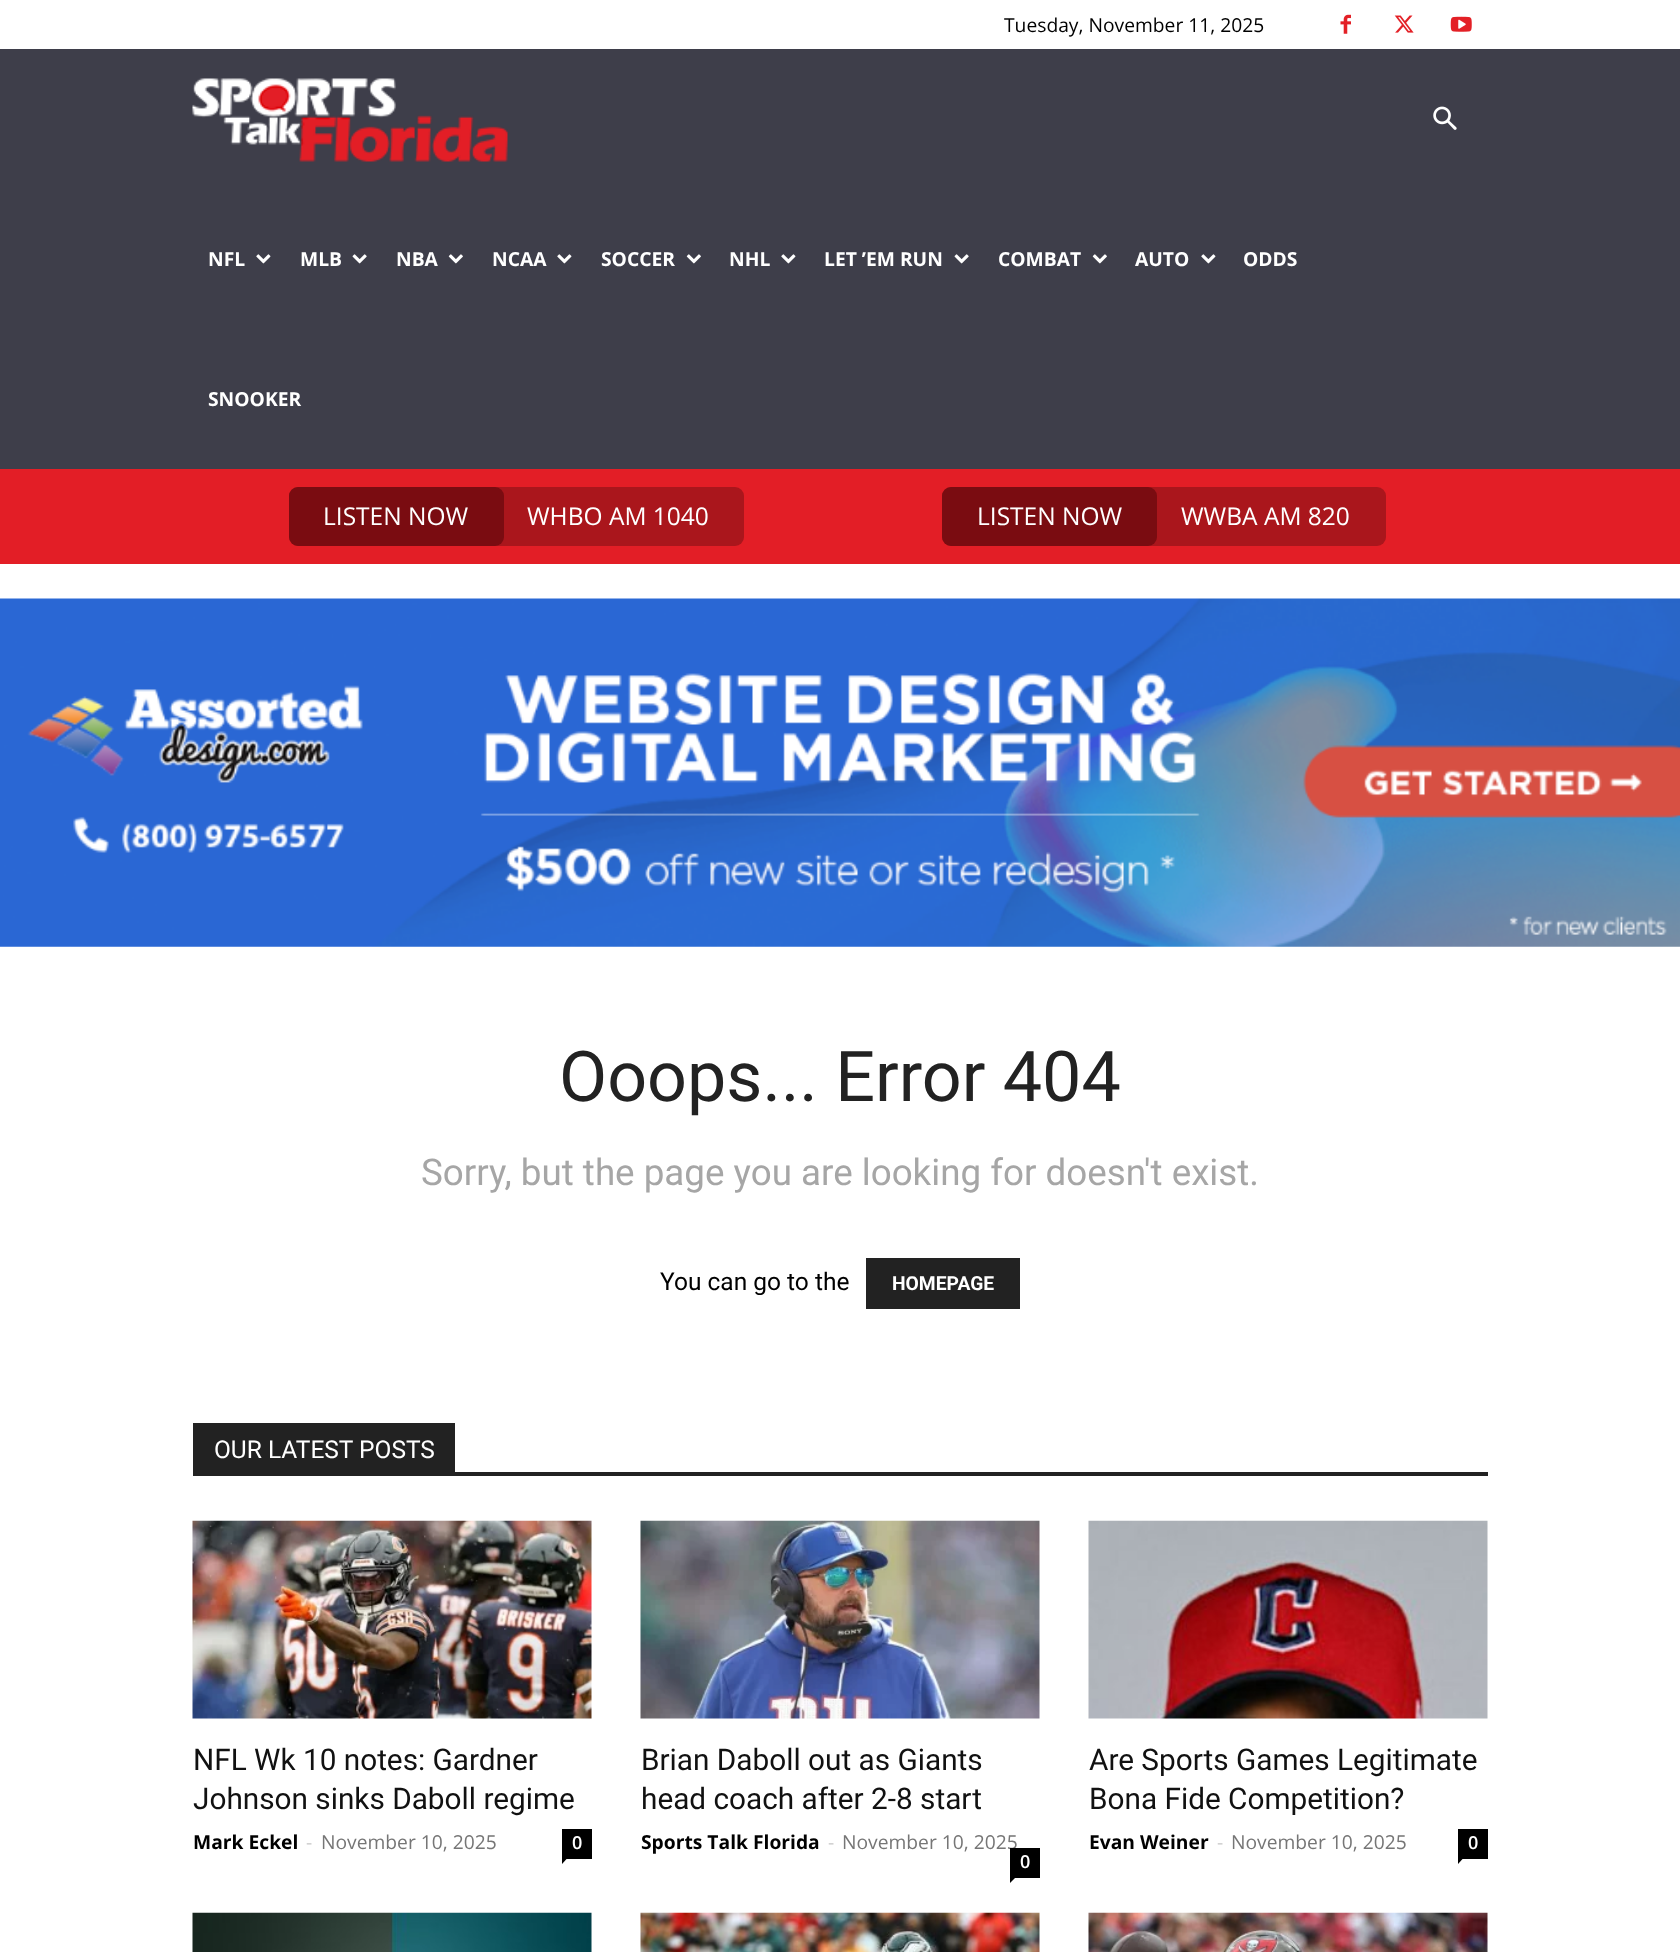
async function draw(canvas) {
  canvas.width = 1680
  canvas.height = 1952
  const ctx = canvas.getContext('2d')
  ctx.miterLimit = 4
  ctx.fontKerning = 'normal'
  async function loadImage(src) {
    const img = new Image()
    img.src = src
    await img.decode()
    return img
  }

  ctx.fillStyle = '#fff'
  ctx.fillRect(0, 0, 1680, 1952)
  ctx.font = '19.25px Open Sans'
  ctx.fillStyle = '#000'
  ctx.fillText('Tuesday, November 11, 2025', 1004, 32)
  ctx.drawImage(await loadImage('image0.png'), 1340, 14, 11, 20)
  ctx.drawImage(await loadImage('image1.png'), 1394, 15, 20, 18)
  ctx.drawImage(await loadImage('image2.png'), 1450, 16, 22, 16)
  ctx.fillStyle = '#3e3e4a'
  ctx.fillRect(0, 49, 1680, 420)
  ctx.drawImage(await loadImage('image3.png'), 1433, 106, 24, 24)
  ctx.drawImage(await loadImage('image4.png'), 192, 78, 316, 84)
  ctx.font = 'bold 19.25px Open Sans'
  ctx.fillStyle = '#fff'
  ctx.fillText('NFL', 208, 266)
  ctx.drawImage(await loadImage('image5.png'), 256, 254, 15, 10)
  ctx.fillText('MLB', 300, 266)
  ctx.drawImage(await loadImage('image6.png'), 352, 254, 15, 10)
  ctx.fillText('NBA', 396, 266)
  ctx.drawImage(await loadImage('image7.png'), 448, 254, 15, 10)
  ctx.fillText('NCAA', 492, 266)
  ctx.drawImage(await loadImage('image5.png'), 557, 254, 15, 10)
  ctx.fillText('SOCCER', 601, 266)
  ctx.drawImage(await loadImage('image7.png'), 686, 254, 15, 10)
  ctx.fillText('NHL', 729, 266)
  ctx.drawImage(await loadImage('image5.png'), 781, 254, 15, 10)
  ctx.fillText('LET ’EM RUN', 824, 266)
  ctx.drawImage(await loadImage('image6.png'), 954, 254, 15, 10)
  ctx.fillText('COMBAT', 998, 266)
  ctx.drawImage(await loadImage('image7.png'), 1092, 254, 15, 10)
  ctx.fillText('AUTO', 1135, 266)
  ctx.drawImage(await loadImage('image5.png'), 1201, 254, 15, 10)
  ctx.fillText('ODDS', 1243, 266)
  ctx.fillText('SNOOKER', 208, 406)
  ctx.fillStyle = '#e31e26'
  ctx.fillRect(0, 469, 1680, 95)
  ctx.fillStyle = '#aa161c'
  ctx.beginPath()
  ctx.roundRect(289, 487, 455, 59, 9)
  ctx.fill()
  ctx.fillStyle = '#7a0c11'
  ctx.beginPath()
  ctx.roundRect(289, 487, 215, 59, 9)
  ctx.fill()
  ctx.font = '24.5px Open Sans'
  ctx.fillStyle = '#fff'
  ctx.fillText('LISTEN NOW', 323, 525)
  ctx.fillText('WHBO AM 1040', 527, 525)
  ctx.fillStyle = '#aa161c'
  ctx.beginPath()
  ctx.roundRect(942, 487, 444, 59, 9)
  ctx.fill()
  ctx.fillStyle = '#7a0c11'
  ctx.beginPath()
  ctx.roundRect(942, 487, 215, 59, 9)
  ctx.fill()
  ctx.fillStyle = '#fff'
  ctx.fillText('LISTEN NOW', 977, 525)
  ctx.fillText('WWBA AM 820', 1181, 525)
  ctx.drawImage(await loadImage('image8.png'), 0, 598, 1680, 349)
  ctx.font = '70px Roboto'
  ctx.fillStyle = '#222'
  ctx.fillText('Ooops... Error 404', 559, 1101)
  ctx.font = '36.75px Roboto'
  ctx.fillStyle = '#a6a6a6'
  ctx.fillText('Sorry, but the page you are looking for doesn\'t exist.', 421, 1185)
  ctx.font = '24.5px Roboto'
  ctx.fillStyle = '#000'
  ctx.fillText('You can go to the', 660, 1290)
  ctx.fillStyle = '#222'
  ctx.fillRect(866, 1258, 154, 51)
  ctx.font = 'bold 19.25px Roboto'
  ctx.fillStyle = '#fff'
  ctx.fillText('HOMEPAGE', 892, 1290)
  ctx.fillStyle = '#222'
  ctx.fillRect(193, 1472, 1295, 4)
  ctx.fillRect(193, 1423, 262, 49)
  ctx.font = '24.5px Roboto'
  ctx.fillStyle = '#fff'
  ctx.fillText('OUR LATEST POSTS', 214, 1458)
  ctx.drawImage(await loadImage('image9.png'), 192, 1520, 400, 199)
  ctx.font = '29.75px Roboto'
  ctx.fillStyle = '#111'
  ctx.fillText('NFL Wk 10 notes: Gardner', 193, 1770)
  ctx.fillText('Johnson sinks Daboll regime', 193, 1809)
  ctx.font = 'bold 19.25px Open Sans'
  ctx.fillStyle = '#000'
  ctx.fillText('Mark Eckel', 193, 1849)
  ctx.font = '19.25px Open Sans'
  ctx.fillStyle = '#ccc'
  ctx.fillText('-', 306, 1849)
  ctx.fillStyle = '#767676'
  ctx.fillText('November 10, 2025', 321, 1849)
  ctx.fillStyle = '#000'
  ctx.fillRect(562, 1829, 30, 30)
  ctx.font = '600 18px Open Sans'
  ctx.fillStyle = '#fff'
  ctx.fillText('0', 572, 1849)
  ctx.fillStyle = '#000'
  ctx.beginPath()
  ctx.moveTo(562, 1858.5)
  ctx.lineTo(567, 1858.5)
  ctx.lineTo(562, 1864)
  ctx.closePath()
  ctx.fill()
  ctx.drawImage(await loadImage('image10.png'), 640, 1520, 400, 199)
  ctx.font = '29.75px Roboto'
  ctx.fillStyle = '#111'
  ctx.fillText('Brian Daboll out as Giants', 641, 1770)
  ctx.fillText('head coach after 2-8 start', 641, 1809)
  ctx.font = 'bold 19.25px Open Sans'
  ctx.fillStyle = '#000'
  ctx.fillText('Sports Talk Florida', 641, 1849)
  ctx.font = '19.25px Open Sans'
  ctx.fillStyle = '#ccc'
  ctx.fillText('-', 828, 1849)
  ctx.fillStyle = '#767676'
  ctx.fillText('November 10, 2025', 842, 1849)
  ctx.fillStyle = '#000'
  ctx.fillRect(1010, 1848, 30, 30)
  ctx.font = '600 18px Open Sans'
  ctx.fillStyle = '#fff'
  ctx.fillText('0', 1020, 1868)
  ctx.fillStyle = '#000'
  ctx.beginPath()
  ctx.moveTo(1010, 1878)
  ctx.lineTo(1015, 1878)
  ctx.lineTo(1010, 1883)
  ctx.closePath()
  ctx.fill()
  ctx.drawImage(await loadImage('image11.png'), 1088, 1520, 400, 199)
  ctx.font = '29.75px Roboto'
  ctx.fillStyle = '#111'
  ctx.fillText('Are Sports Games Legitimate', 1089, 1770)
  ctx.fillText('Bona Fide Competition?', 1089, 1809)
  ctx.font = 'bold 19.25px Open Sans'
  ctx.fillStyle = '#000'
  ctx.fillText('Evan Weiner', 1089, 1849)
  ctx.font = '19.25px Open Sans'
  ctx.fillStyle = '#ccc'
  ctx.fillText('-', 1217, 1849)
  ctx.fillStyle = '#767676'
  ctx.fillText('November 10, 2025', 1231, 1849)
  ctx.fillStyle = '#000'
  ctx.fillRect(1458, 1829, 30, 30)
  ctx.font = '600 18px Open Sans'
  ctx.fillStyle = '#fff'
  ctx.fillText('0', 1468, 1849)
  ctx.fillStyle = '#000'
  ctx.beginPath()
  ctx.moveTo(1458, 1858.5)
  ctx.lineTo(1463, 1858.5)
  ctx.lineTo(1458, 1864)
  ctx.closePath()
  ctx.fill()
  ctx.drawImage(await loadImage('image12.png'), 192, 1912, 400, 40)
  ctx.drawImage(await loadImage('image13.png'), 640, 1912, 400, 40)
  ctx.drawImage(await loadImage('image14.png'), 1088, 1912, 400, 40)
}

draw(document.querySelector('canvas'))
